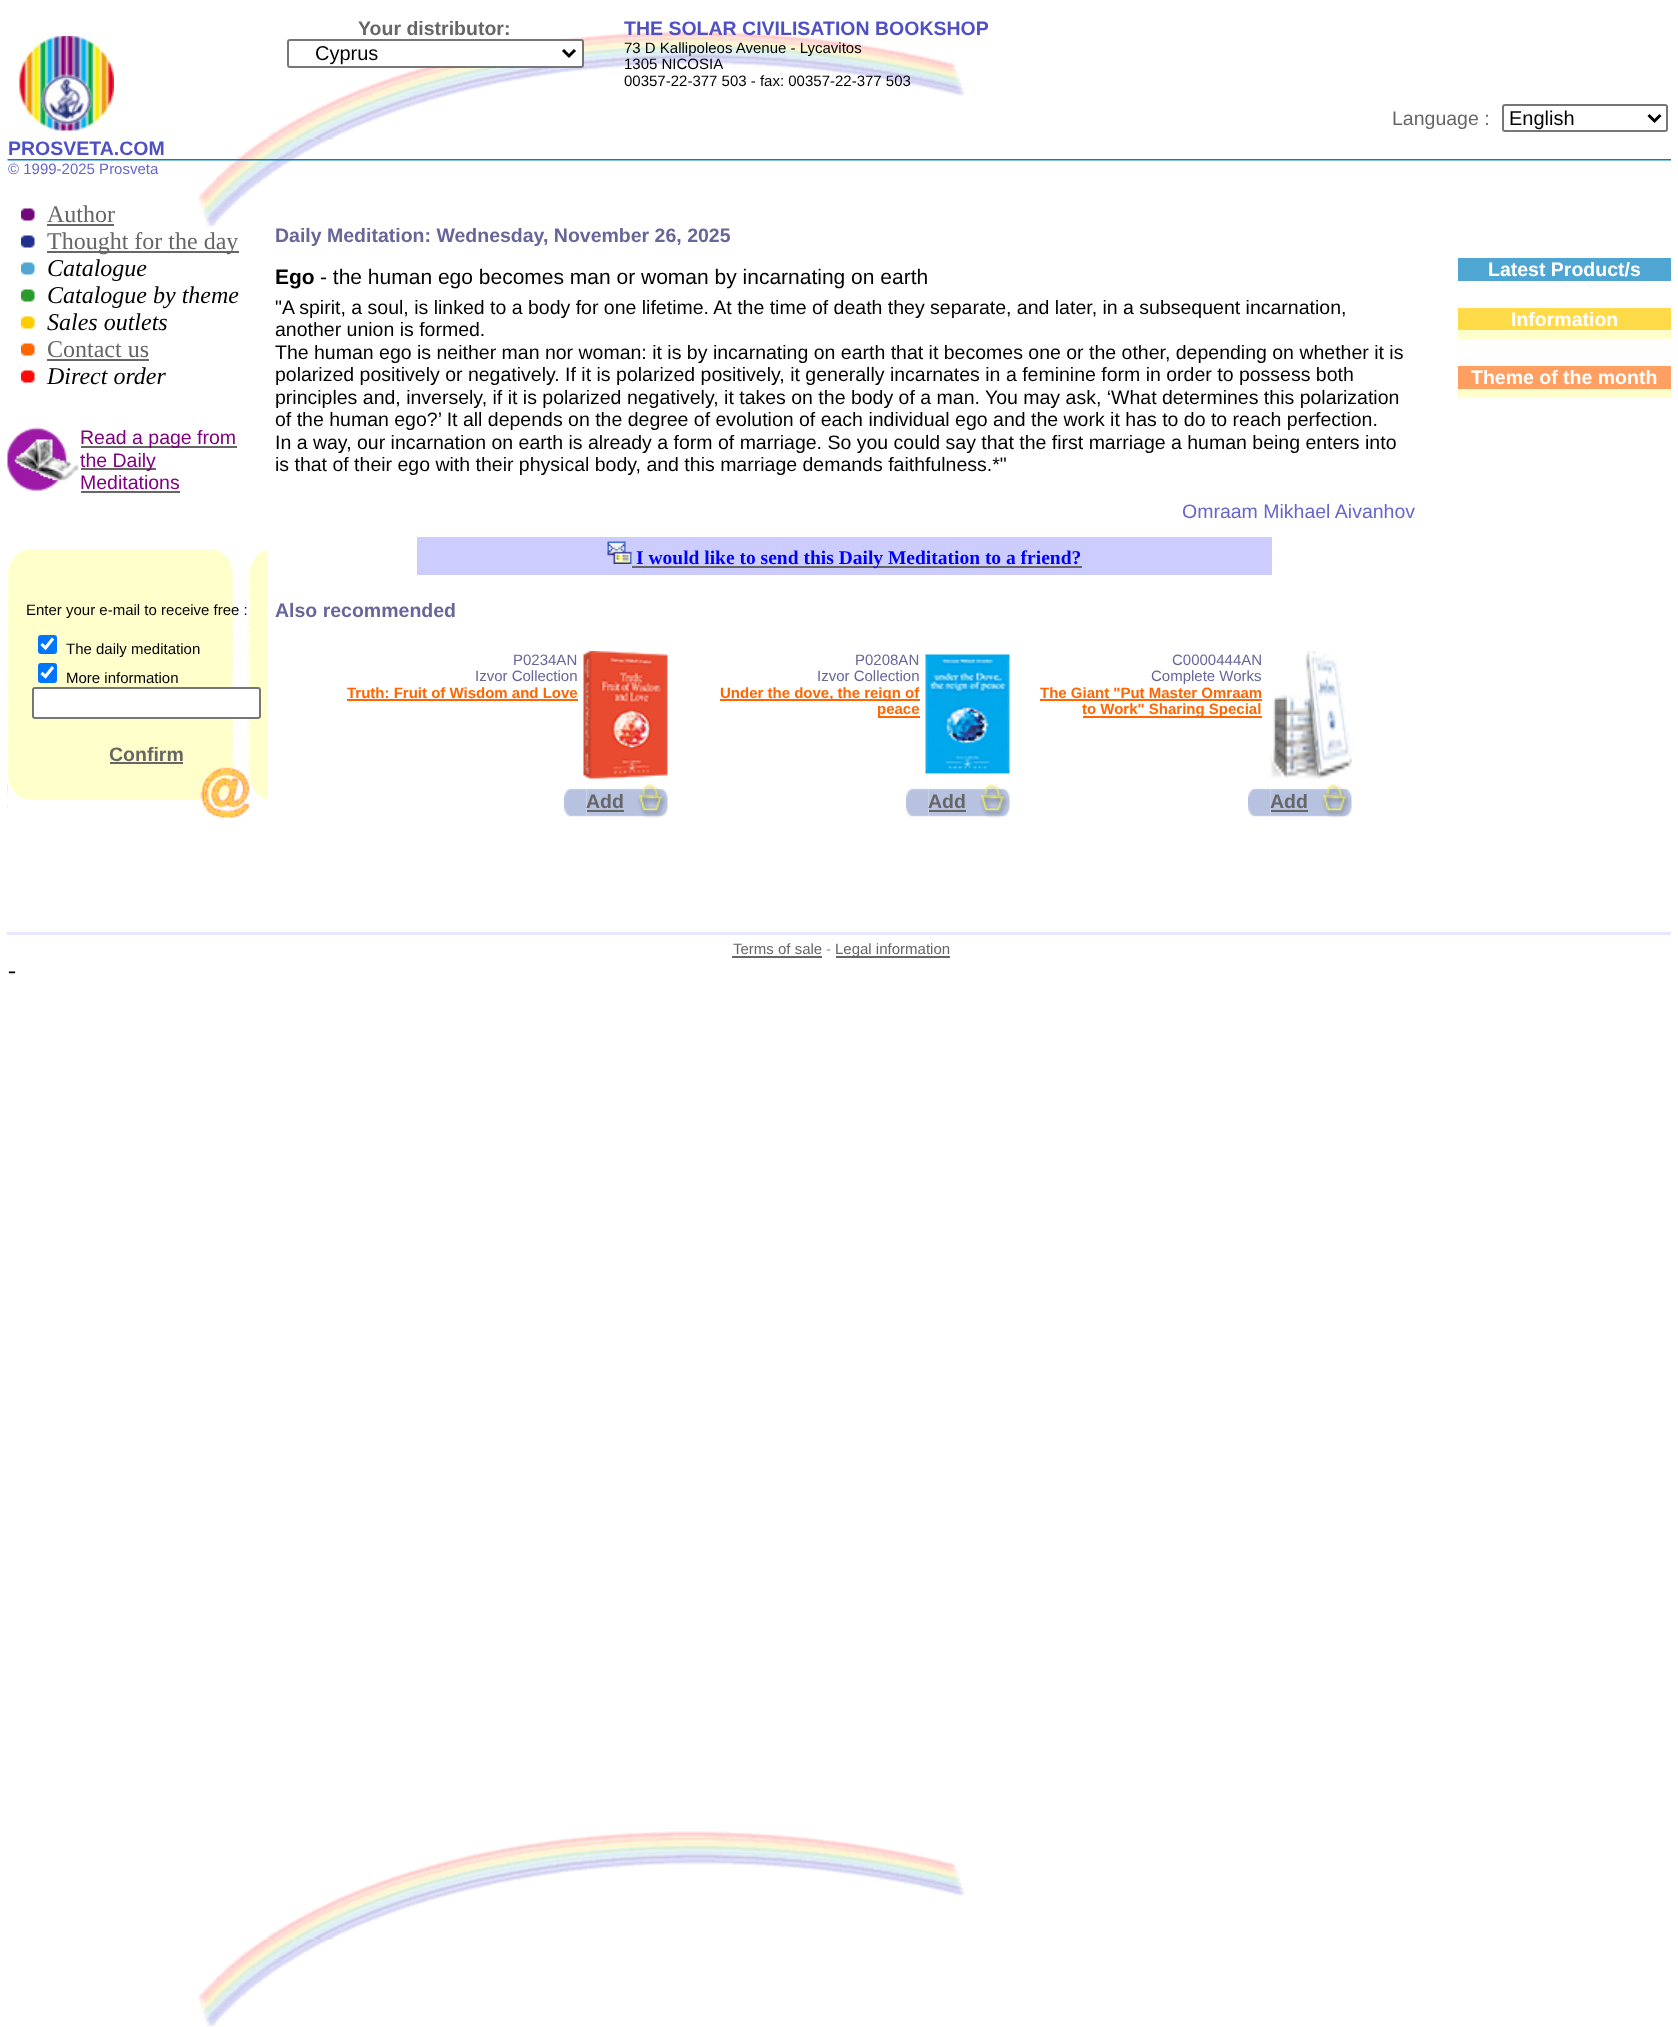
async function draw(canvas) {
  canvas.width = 1678
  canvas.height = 2027
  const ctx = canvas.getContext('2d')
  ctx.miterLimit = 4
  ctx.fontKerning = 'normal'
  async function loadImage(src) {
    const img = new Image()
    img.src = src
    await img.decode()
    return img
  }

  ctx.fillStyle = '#fff'
  ctx.fillRect(0, 0, 1678, 2027)
  ctx.drawImage(await loadImage('image0.png'), 198, 31, 767, 1996)
  ctx.beginPath()
  ctx.roundRect(288, 40, 295, 27, 2)
  ctx.fill()
  ctx.strokeStyle = '#767676'
  ctx.lineWidth = 2
  ctx.stroke()
  ctx.beginPath()
  ctx.moveTo(563, 50)
  ctx.lineTo(569, 56)
  ctx.lineTo(575, 50)
  ctx.strokeStyle = '#000'
  ctx.lineWidth = 3
  ctx.stroke()
  ctx.font = '20px Liberation Sans'
  ctx.fillStyle = '#000'
  ctx.fillText('Cyprus', 315, 60)
  ctx.font = 'bold 19.5px Liberation Sans'
  ctx.fillStyle = '#666'
  ctx.fillText('Your distributor:', 358, 35)
  ctx.fillStyle = '#5050c5'
  ctx.fillText('THE SOLAR CIVILISATION BOOKSHOP', 624, 35)
  ctx.font = '15px Liberation Sans'
  ctx.fillStyle = '#000'
  ctx.fillText('73 D Kallipoleos Avenue - Lycavitos', 624, 53)
  ctx.fillText('1305 NICOSIA', 624, 69)
  ctx.fillText('00357-22-377 503 - fax: 00357-22-377 503', 624, 86)
  ctx.font = '19.5px Liberation Sans'
  ctx.fillStyle = '#666'
  ctx.fillText('Language :', 1392, 125)
  ctx.beginPath()
  ctx.roundRect(1503, 105, 164, 26, 2)
  ctx.strokeStyle = '#767676'
  ctx.lineWidth = 2
  ctx.stroke()
  ctx.beginPath()
  ctx.moveTo(1648.5, 115)
  ctx.lineTo(1654.5, 121)
  ctx.lineTo(1660.5, 115)
  ctx.strokeStyle = '#000'
  ctx.lineWidth = 3
  ctx.stroke()
  ctx.font = '20px Liberation Sans'
  ctx.fillStyle = '#000'
  ctx.fillText('English', 1509, 125)
  ctx.drawImage(await loadImage('image1.png'), 19, 36, 95, 95)
  ctx.font = 'bold 19.5px Liberation Sans'
  ctx.fillStyle = '#5050c5'
  ctx.fillText('PROSVETA.COM', 8, 155)
  ctx.drawImage(await loadImage('image2.png'), 7, 159, 1664, 2)
  ctx.font = '15px Liberation Sans'
  ctx.fillStyle = '#66c'
  ctx.fillText('© 1999-2025 Prosveta', 8, 174)
  ctx.drawImage(await loadImage('image3.png'), 21, 208, 14, 13)
  ctx.font = '24px Liberation Serif'
  ctx.fillStyle = '#666'
  ctx.fillText('Author', 47, 222)
  ctx.fillRect(47, 224, 67, 2)
  ctx.drawImage(await loadImage('image4.png'), 21, 235, 14, 13)
  ctx.fillRect(47, 251, 192, 2)
  ctx.fillText('Thought for the day', 47, 249)
  ctx.drawImage(await loadImage('image5.png'), 21, 262, 14, 13)
  ctx.font = 'italic 24px Liberation Serif'
  ctx.fillStyle = '#000'
  ctx.fillText('Catalogue', 47, 276)
  ctx.drawImage(await loadImage('image6.png'), 21, 289, 14, 13)
  ctx.fillText('Catalogue by theme', 47, 303)
  ctx.drawImage(await loadImage('image7.png'), 21, 316, 14, 13)
  ctx.fillText('Sales outlets', 47, 330)
  ctx.drawImage(await loadImage('image8.png'), 21, 343, 14, 13)
  ctx.font = '24px Liberation Serif'
  ctx.fillStyle = '#666'
  ctx.fillText('Contact us', 47, 357)
  ctx.fillRect(47, 359, 102, 2)
  ctx.drawImage(await loadImage('image9.png'), 21, 370, 14, 13)
  ctx.font = 'italic 24px Liberation Serif'
  ctx.fillStyle = '#000'
  ctx.fillText('Direct order', 47, 384)
  ctx.drawImage(await loadImage('image10.png'), 7, 427, 72, 64)
  ctx.fillStyle = '#666'
  ctx.fillRect(81, 446, 156, 2)
  ctx.font = '19.5px Liberation Sans'
  ctx.fillStyle = '#800080'
  ctx.fillText('Read a page from', 80, 444)
  ctx.fillStyle = '#666'
  ctx.fillRect(81, 468, 75, 2)
  ctx.fillStyle = '#800080'
  ctx.fillText('the Daily', 80, 467)
  ctx.fillText('Meditations', 80, 489)
  ctx.fillStyle = '#666'
  ctx.fillRect(81, 491, 99, 2)
  ctx.drawImage(await loadImage('image11.png'), 7, 549, 260, 269)
  ctx.font = '15px Liberation Sans'
  ctx.fillStyle = '#000'
  ctx.fillText('Enter your e-mail to receive free :', 26, 615)
  ctx.fillStyle = '#0075ff'
  ctx.beginPath()
  ctx.roundRect(38, 635, 19, 19, 3)
  ctx.fill()
  ctx.beginPath()
  ctx.moveTo(41.5, 644)
  ctx.lineTo(45.5, 648)
  ctx.lineTo(53, 638.5)
  ctx.strokeStyle = '#fff'
  ctx.lineWidth = 3.1
  ctx.stroke()
  ctx.fillStyle = '#000'
  ctx.fillText('The daily meditation', 66, 654)
  ctx.fillStyle = '#0075ff'
  ctx.beginPath()
  ctx.roundRect(38, 663, 19, 20, 3)
  ctx.fill()
  ctx.beginPath()
  ctx.moveTo(41.5, 673)
  ctx.lineTo(45.5, 676.5)
  ctx.lineTo(53, 667)
  ctx.stroke()
  ctx.fillStyle = '#000'
  ctx.fillText('More information', 66, 683)
  ctx.fillStyle = '#fff'
  ctx.beginPath()
  ctx.roundRect(33, 688, 227, 30, 2)
  ctx.fill()
  ctx.strokeStyle = '#767676'
  ctx.lineWidth = 2
  ctx.stroke()
  ctx.font = 'bold 19.5px Liberation Sans'
  ctx.fillStyle = '#666'
  ctx.fillText('Confirm', 109, 761)
  ctx.fillRect(110, 762, 73, 2)
  ctx.fillStyle = '#669'
  ctx.fillText('Daily Meditation: Wednesday, November 26, 2025', 275, 242)
  ctx.font = 'bold 21px Liberation Sans'
  ctx.fillStyle = '#000'
  ctx.fillText('Ego', 275, 284)
  ctx.font = '21px Liberation Sans'
  ctx.fillText('- the human ego becomes man or woman by incarnating on earth', 320, 284)
  ctx.font = '19.5px Liberation Sans'
  ctx.fillText('"A spirit, a soul, is linked to a body for one lifetime. At the time of death they separate, and later, in a subsequent incarnation,', 275, 314)
  ctx.fillText('another union is formed.', 275, 336)
  ctx.fillText('The human ego is neither man nor woman: it is by incarnating on earth that it becomes one or the other, depending on whether it is', 275, 359)
  ctx.fillText('polarized positively or negatively. If it is polarized positively, it generally incarnates in a feminine form in order to possess both', 275, 381)
  ctx.fillText('principles and, inversely, if it is polarized negatively, it takes on the body of a man. You may ask, ‘What determines this polarization', 275, 404)
  ctx.fillText('of the human ego?’ It all depends on the degree of evolution of each individual ego and the work it has to do to reach perfection.', 275, 426)
  ctx.fillText('In a way, our incarnation on earth is already a form of marriage. So you could say that the first marriage a human being enters into', 275, 449)
  ctx.fillText('is that of their ego with their physical body, and this marriage demands faithfulness.*"', 275, 471)
  ctx.fillStyle = '#66c'
  ctx.fillText('Omraam Mikhael Aivanhov', 1182, 518)
  ctx.fillStyle = '#ccf'
  ctx.fillRect(417, 537, 855, 38)
  ctx.drawImage(await loadImage('image12.png'), 607, 541, 25, 23)
  ctx.fillStyle = '#666'
  ctx.fillRect(632, 566, 450, 2)
  ctx.font = 'bold 19.5px Liberation Serif'
  ctx.fillStyle = '#00f'
  ctx.fillText('I would like to send this Daily Meditation to a friend?', 636, 564)
  ctx.font = 'bold 19.5px Liberation Sans'
  ctx.fillStyle = '#669'
  ctx.fillText('Also recommended', 275, 617)
  ctx.font = '15px Liberation Sans'
  ctx.fillText('P0234AN', 513, 665)
  ctx.fillText('Izvor Collection', 475, 681)
  ctx.font = 'bold 15px Liberation Sans'
  ctx.fillStyle = '#f60'
  ctx.fillText('Truth: Fruit of Wisdom and Love', 347, 698)
  ctx.fillRect(347, 699, 231, 2)
  ctx.drawImage(await loadImage('image13.png'), 583, 651, 85, 128)
  ctx.drawImage(await loadImage('image15.png'), 586, 788, 38, 29)
  ctx.drawImage(await loadImage('image14.png'), 564, 788, 23, 29)
  ctx.font = 'bold 19.5px Liberation Sans'
  ctx.fillStyle = '#666'
  ctx.fillText('Add', 586, 808)
  ctx.fillRect(587, 810, 37, 2)
  ctx.drawImage(await loadImage('image16.png'), 624, 784, 44, 34)
  ctx.font = '15px Liberation Sans'
  ctx.fillStyle = '#669'
  ctx.fillText('P0208AN', 855, 665)
  ctx.fillText('Izvor Collection', 817, 681)
  ctx.fillStyle = '#f60'
  ctx.fillRect(720, 699, 200, 2)
  ctx.font = 'bold 15px Liberation Sans'
  ctx.fillText('Under the dove, the reign of', 720, 698)
  ctx.fillRect(878, 716, 42, 2)
  ctx.fillText('peace', 877, 714)
  ctx.drawImage(await loadImage('image17.png'), 925, 654, 85, 120)
  ctx.drawImage(await loadImage('image15.png'), 928, 788, 38, 29)
  ctx.drawImage(await loadImage('image18.png'), 906, 788, 23, 29)
  ctx.font = 'bold 19.5px Liberation Sans'
  ctx.fillStyle = '#666'
  ctx.fillText('Add', 928, 808)
  ctx.fillRect(929, 810, 37, 2)
  ctx.drawImage(await loadImage('image16.png'), 966, 784, 44, 34)
  ctx.font = '15px Liberation Sans'
  ctx.fillStyle = '#669'
  ctx.fillText('C0000444AN', 1172, 665)
  ctx.fillText('Complete Works', 1151, 681)
  ctx.font = 'bold 15px Liberation Sans'
  ctx.fillStyle = '#f60'
  ctx.fillText('The Giant "Put Master Omraam', 1040, 698)
  ctx.fillRect(1040, 699, 222, 2)
  ctx.fillRect(1083, 716, 179, 2)
  ctx.fillText('to Work" Sharing Special', 1082, 714)
  ctx.drawImage(await loadImage('image19.png'), 1270, 651, 82, 128)
  ctx.drawImage(await loadImage('image15.png'), 1270, 788, 38, 29)
  ctx.drawImage(await loadImage('image14.png'), 1248, 788, 23, 29)
  ctx.font = 'bold 19.5px Liberation Sans'
  ctx.fillStyle = '#666'
  ctx.fillText('Add', 1270, 808)
  ctx.fillRect(1271, 810, 37, 2)
  ctx.drawImage(await loadImage('image16.png'), 1308, 784, 44, 34)
  ctx.fillStyle = '#50a6d3'
  ctx.fillRect(1458, 258, 213, 23)
  ctx.fillStyle = '#fff'
  ctx.fillText('Latest Product/s', 1488, 276)
  ctx.fillStyle = '#ffdb4a'
  ctx.fillRect(1458, 308, 213, 22)
  ctx.fillStyle = '#fff'
  ctx.fillText('Information', 1511, 326)
  ctx.fillStyle = '#ffc'
  ctx.fillRect(1458, 330, 213, 9)
  ctx.fillStyle = '#ffa062'
  ctx.fillRect(1458, 366, 213, 23)
  ctx.fillStyle = '#fff'
  ctx.fillText('Theme of the month', 1471, 384)
  ctx.fillStyle = '#ffc'
  ctx.fillRect(1458, 389, 213, 9)
  ctx.fillStyle = '#e6e6ff'
  ctx.fillRect(7, 932, 1664, 3)
  ctx.font = '15px Liberation Sans'
  ctx.fillStyle = '#666'
  ctx.fillText('Terms of sale', 733, 954)
  ctx.fillRect(732, 956, 90, 2)
  ctx.fillStyle = '#999'
  ctx.fillText('-', 826, 954)
  ctx.fillStyle = '#666'
  ctx.fillRect(836, 956, 114, 2)
  ctx.fillText('Legal information', 835, 954)
  ctx.font = '24px Liberation Serif'
  ctx.fillStyle = '#000'
  ctx.fillText('-', 8, 978)
}

draw(document.querySelector('canvas'))
